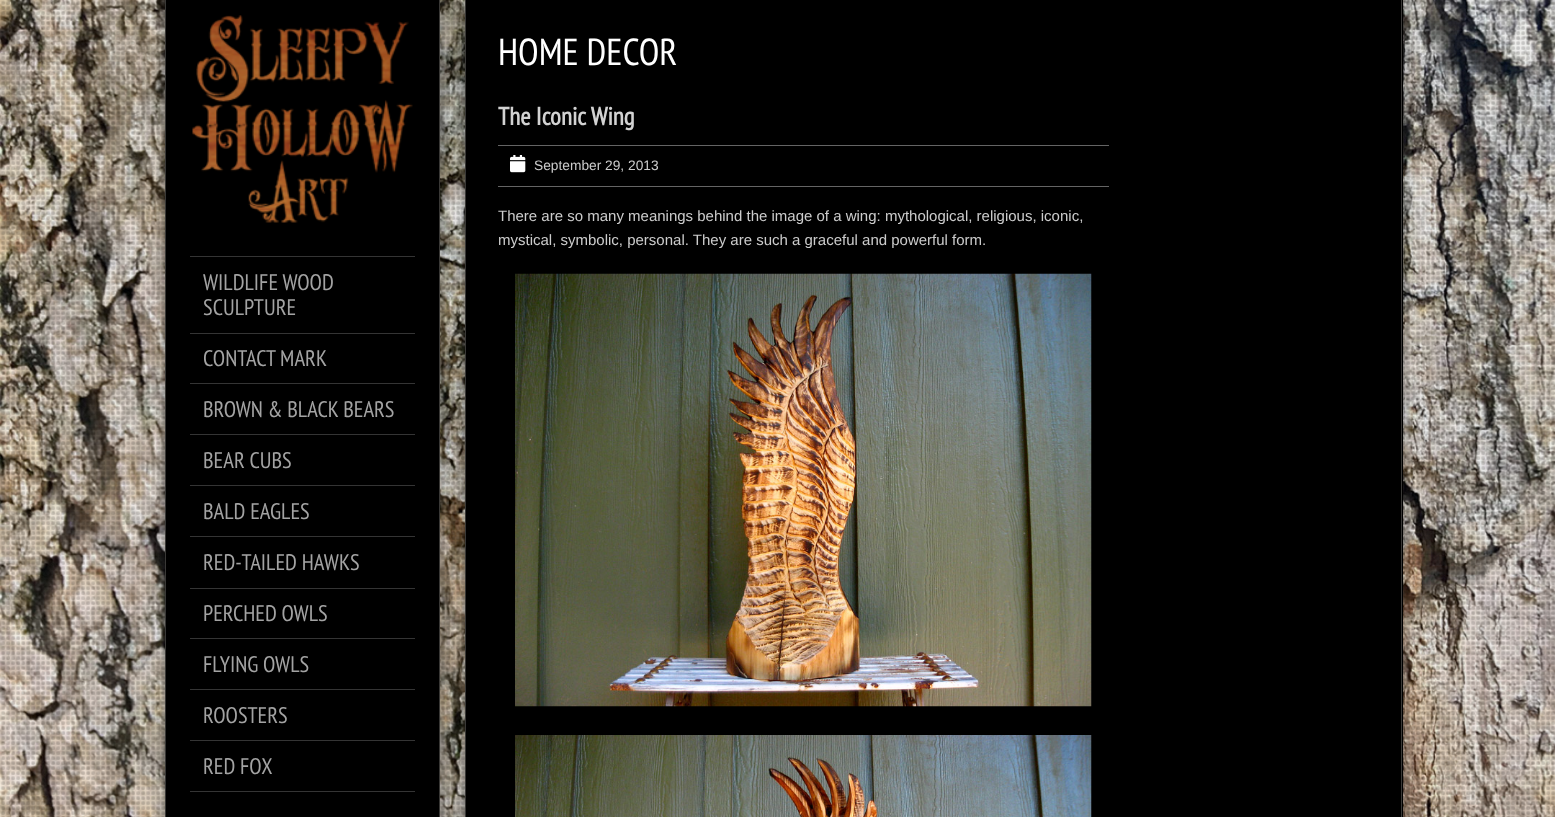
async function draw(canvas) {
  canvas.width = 1555
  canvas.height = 817
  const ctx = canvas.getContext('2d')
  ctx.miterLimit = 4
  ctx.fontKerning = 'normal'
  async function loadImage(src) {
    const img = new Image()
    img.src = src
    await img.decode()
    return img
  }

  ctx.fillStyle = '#fff'
  ctx.fillRect(0, 0, 1555, 817)
  ctx.drawImage(await loadImage('image0.png'), 1554, 0, 1, 817)
  ctx.drawImage(await loadImage('image1.png'), 0, 0, 1555, 817)
  ctx.drawImage(await loadImage('image2.png'), 0, 0, 1555, 817)
  ctx.fillStyle = '#11111180'
  ctx.filter = 'blur(6px)'
  ctx.beginPath()
  ctx.rect(465, 0, 938, 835)
  ctx.fill()
  ctx.filter = 'none'
  ctx.fillStyle = '#000'
  ctx.fillRect(466, 0, 937, 817)
  ctx.fillStyle = '#393836'
  ctx.fillRect(1401, 0, 1, 817)
  ctx.fillRect(465, 0, 1, 817)
  ctx.font = '37.5px PT Sans Narrow'
  ctx.fillStyle = '#fff'
  ctx.fillText('HOME DECOR', 498, 65)
  ctx.font = 'bold 25px PT Sans Narrow'
  ctx.fillStyle = '#d2d2d2'
  ctx.fillText('The Iconic Wing', 498, 125)
  ctx.fillStyle = '#646464'
  ctx.fillRect(498, 145, 611, 1)
  ctx.fillRect(498, 186, 611, 1)
  ctx.drawImage(await loadImage('image3.png'), 510, 155, 16, 18)
  ctx.font = '13.75px Liberation Sans'
  ctx.fillStyle = '#ccc'
  ctx.fillText('September 29, 2013', 534, 170)
  ctx.font = '15px Liberation Sans'
  ctx.fillText('There are so many meanings behind the image of a wing: mythological, religious, iconic,', 498, 221)
  ctx.fillText('mystical, symbolic, personal. They are such a graceful and powerful form.', 498, 245)
  ctx.drawImage(await loadImage('image4.png'), 515, 273, 577, 434)
  ctx.drawImage(await loadImage('image5.png'), 515, 735, 577, 82)
  ctx.fillStyle = '#11111180'
  ctx.filter = 'blur(6px)'
  ctx.beginPath()
  ctx.rect(165, -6, 275, 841)
  ctx.fill()
  ctx.filter = 'none'
  ctx.fillStyle = '#000'
  ctx.fillRect(166, 0, 273, 817)
  ctx.fillStyle = '#393836'
  ctx.fillRect(439, 0, 1, 817)
  ctx.fillRect(165, 0, 1, 817)
  ctx.drawImage(await loadImage('image6.png'), 192, 15, 221, 208)
  ctx.fillStyle = '#343434'
  ctx.fillRect(190, 256, 225, 1)
  ctx.fillRect(190, 333, 225, 1)
  ctx.font = '22.5px PT Sans Narrow'
  ctx.fillStyle = '#a3a3a3'
  ctx.fillText('WILDLIFE WOOD', 203, 290)
  ctx.fillText('SCULPTURE', 203, 315)
  ctx.fillStyle = '#343434'
  ctx.fillRect(190, 383, 225, 1)
  ctx.fillStyle = '#a3a3a3'
  ctx.fillText('CONTACT MARK', 203, 366)
  ctx.fillStyle = '#343434'
  ctx.fillRect(190, 434, 225, 1)
  ctx.fillStyle = '#a3a3a3'
  ctx.fillText('BROWN & BLACK BEARS', 203, 417)
  ctx.fillStyle = '#343434'
  ctx.fillRect(190, 485, 225, 1)
  ctx.fillStyle = '#a3a3a3'
  ctx.fillText('BEAR CUBS', 203, 468)
  ctx.fillStyle = '#343434'
  ctx.fillRect(190, 536, 225, 1)
  ctx.fillStyle = '#a3a3a3'
  ctx.fillText('BALD EAGLES', 203, 519)
  ctx.fillStyle = '#343434'
  ctx.fillRect(190, 588, 225, 1)
  ctx.fillStyle = '#a3a3a3'
  ctx.fillText('RED-TAILED HAWKS', 203, 570)
  ctx.fillStyle = '#343434'
  ctx.fillRect(190, 638, 225, 1)
  ctx.fillStyle = '#a3a3a3'
  ctx.fillText('PERCHED OWLS', 203, 621)
  ctx.fillStyle = '#343434'
  ctx.fillRect(190, 689, 225, 1)
  ctx.fillStyle = '#a3a3a3'
  ctx.fillText('FLYING OWLS', 203, 672)
  ctx.fillStyle = '#343434'
  ctx.fillRect(190, 740, 225, 1)
  ctx.fillStyle = '#a3a3a3'
  ctx.fillText('ROOSTERS', 203, 723)
  ctx.fillStyle = '#343434'
  ctx.fillRect(190, 791, 225, 1)
  ctx.fillStyle = '#a3a3a3'
  ctx.fillText('RED FOX', 203, 774)
}

draw(document.querySelector('canvas'))
